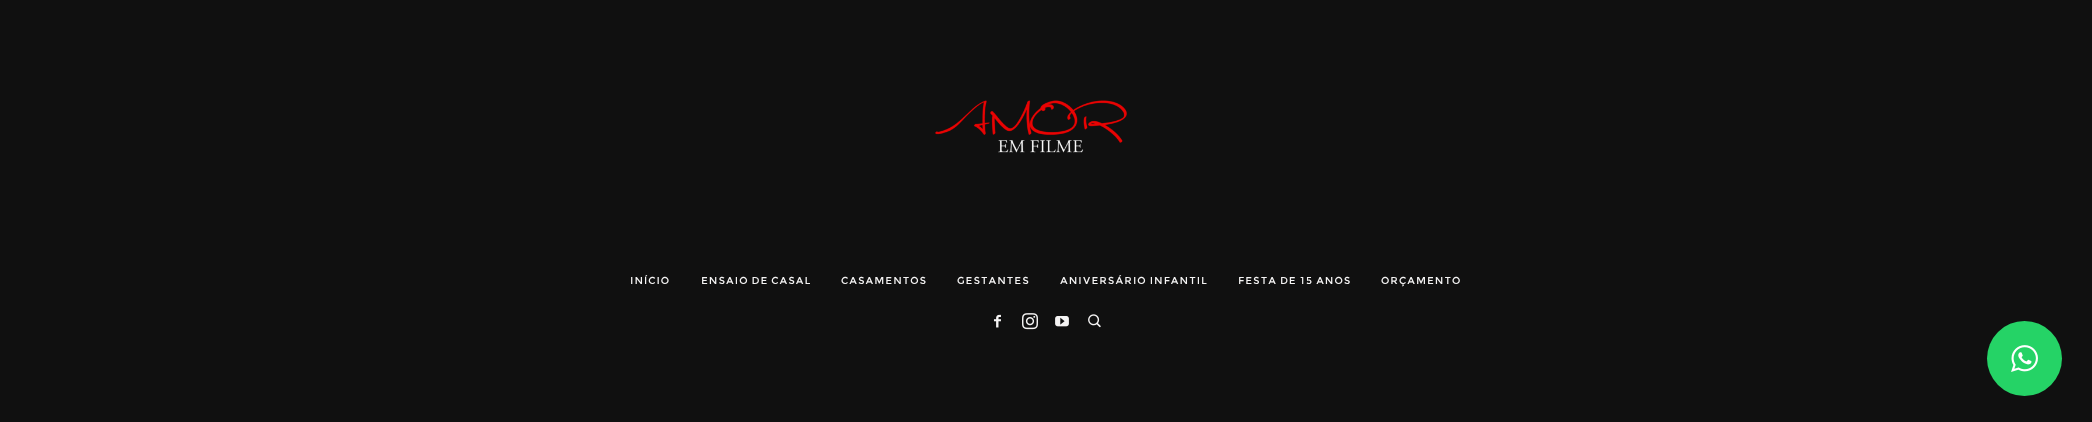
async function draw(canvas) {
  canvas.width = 2092
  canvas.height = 422
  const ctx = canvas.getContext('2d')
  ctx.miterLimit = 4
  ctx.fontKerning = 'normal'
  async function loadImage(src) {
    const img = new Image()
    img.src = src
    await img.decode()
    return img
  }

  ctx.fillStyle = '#101010'
  ctx.fillRect(0, 0, 2092, 422)
  ctx.drawImage(await loadImage('image0.png'), 935, 100, 192, 53)
  ctx.letterSpacing = '1px'
  ctx.font = '10px Montserrat'
  ctx.fillStyle = '#f5f4f4'
  ctx.fillText('INÍCIO', 630, 284)
  ctx.fillText('ENSAIO DE CASAL', 701, 284)
  ctx.fillText('CASAMENTOS', 841, 284)
  ctx.fillText('GESTANTES', 957, 284)
  ctx.fillText('ANIVERSÁRIO INFANTIL', 1060, 284)
  ctx.fillText('FESTA DE 15 ANOS', 1238, 284)
  ctx.fillText('ORÇAMENTO', 1381, 284)
  ctx.drawImage(await loadImage('image1.png'), 993, 314, 8, 14)
  ctx.drawImage(await loadImage('image2.png'), 1022, 313, 16, 17)
  ctx.drawImage(await loadImage('image3.png'), 1055, 316, 14, 11)
  ctx.drawImage(await loadImage('image4.png'), 1088, 314, 13, 14)
  ctx.fillStyle = '#25d366'
  ctx.beginPath()
  ctx.arc(2024.5, 358.5, 37.5, 0, 2 * Math.PI)
  ctx.fill()
  ctx.drawImage(await loadImage('image5.png'), 2011, 345, 27, 27)
}

draw(document.querySelector('canvas'))
